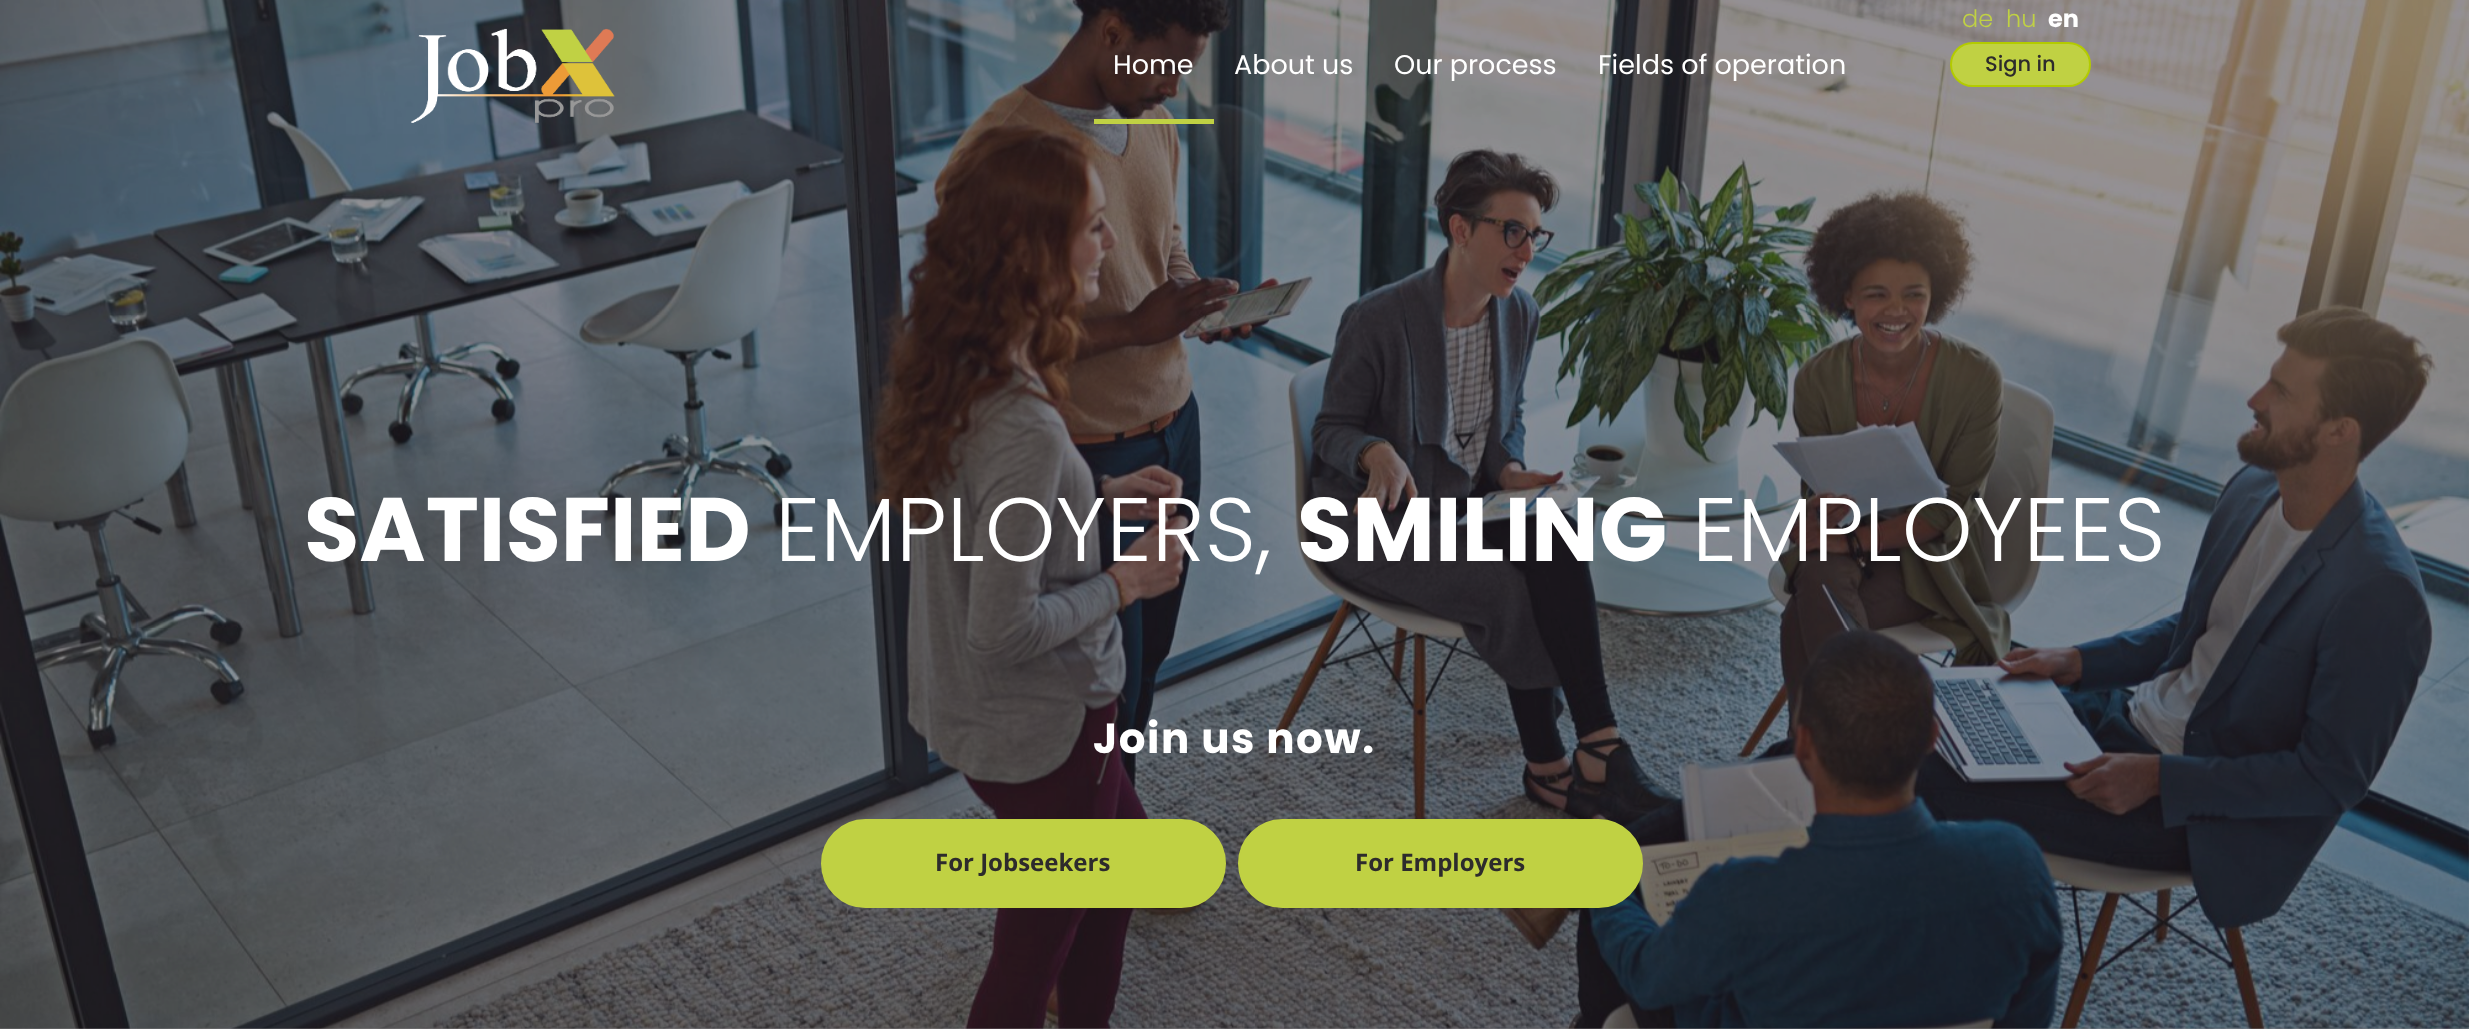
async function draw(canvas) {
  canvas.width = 2469
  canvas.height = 1029
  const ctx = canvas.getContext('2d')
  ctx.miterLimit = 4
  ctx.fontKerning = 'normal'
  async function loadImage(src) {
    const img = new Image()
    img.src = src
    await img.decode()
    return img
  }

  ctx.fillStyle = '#908c91'
  ctx.fillRect(0, 0, 2469, 1029)
  ctx.drawImage(await loadImage('image1.png'), 0, 0, 2469, 1029)
  ctx.font = '300 24px Poppins'
  ctx.fillStyle = '#c0d143'
  ctx.fillText('de', 1962, 27)
  ctx.fillText('hu', 2006, 27)
  ctx.font = 'bold 24px Poppins'
  ctx.fillStyle = '#fff'
  ctx.fillText('en', 2048, 27)
  ctx.drawImage(await loadImage('image0.png'), 411, 28, 204, 95)
  ctx.fillStyle = '#c0d143'
  ctx.fillRect(1094, 119, 120, 5)
  ctx.font = '27px Poppins'
  ctx.fillStyle = '#fff'
  ctx.fillText('Home', 1113, 74)
  ctx.fillText('About us', 1234, 74)
  ctx.fillText('Our process', 1394, 74)
  ctx.fillText('Fields of operation', 1598, 74)
  ctx.fillStyle = '#c0d143'
  ctx.beginPath()
  ctx.roundRect(1951, 43, 139, 43, 21.5)
  ctx.fill()
  ctx.strokeStyle = '#b3cb00'
  ctx.lineWidth = 2
  ctx.stroke()
  ctx.font = '500 21px Poppins'
  ctx.fillStyle = '#2d2b2c'
  ctx.fillText('Sign in', 1985, 71)
  ctx.font = 'bold 90px Poppins'
  ctx.fillStyle = '#fff'
  ctx.fillText('SATISFIED', 304, 561)
  ctx.font = '300 90px Poppins'
  ctx.fillText('EMPLOYERS,', 775, 561)
  ctx.font = 'bold 90px Poppins'
  ctx.fillText('SMILING', 1297, 561)
  ctx.font = '300 90px Poppins'
  ctx.fillText('EMPLOYEES', 1692, 561)
  ctx.letterSpacing = '1.5px'
  ctx.font = 'bold 42px Poppins'
  ctx.fillText('Join us now.', 1093, 753)
  ctx.fillStyle = '#c0d143'
  ctx.beginPath()
  ctx.roundRect(822, 820, 403, 87, 43.5)
  ctx.fill()
  ctx.strokeStyle = '#c0d143'
  ctx.stroke()
  ctx.letterSpacing = '0px'
  ctx.font = 'bold 24px Open Sans'
  ctx.fillStyle = '#2d2b2c'
  ctx.fillText('For Jobseekers', 935, 871)
  ctx.fillStyle = '#c0d143'
  ctx.beginPath()
  ctx.roundRect(1239, 820, 403, 87, 43.5)
  ctx.fill()
  ctx.stroke()
  ctx.fillStyle = '#2d2b2c'
  ctx.fillText('For Employers', 1355, 871)
}

draw(document.querySelector('canvas'))
